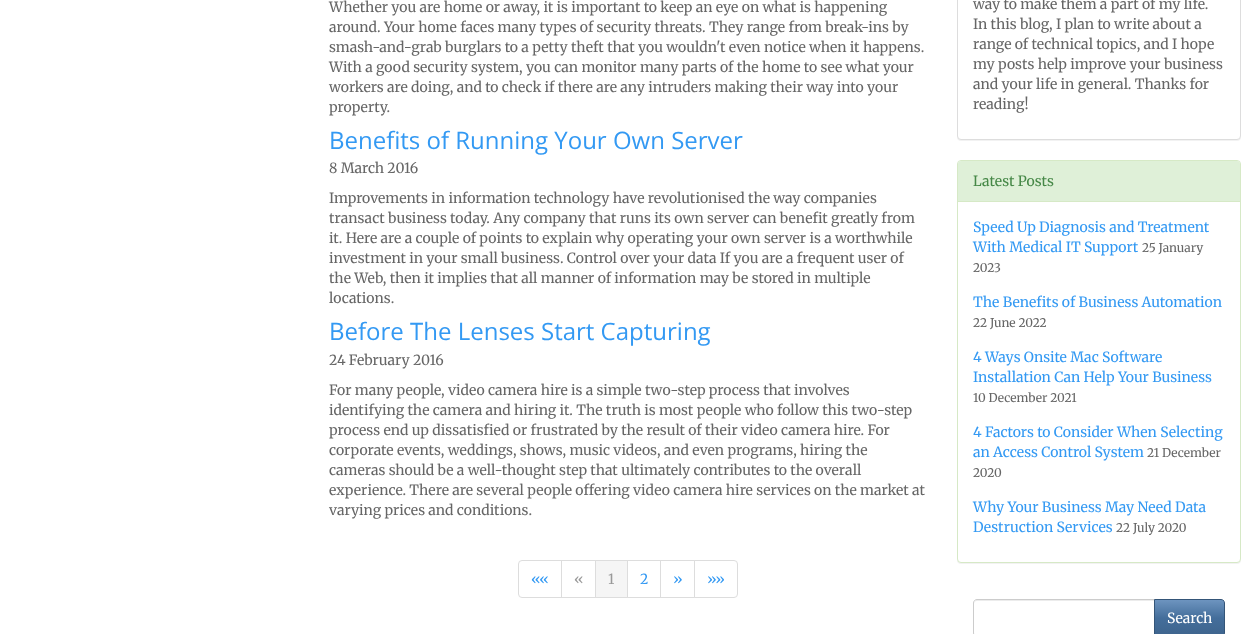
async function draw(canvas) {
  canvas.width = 1256
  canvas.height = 634
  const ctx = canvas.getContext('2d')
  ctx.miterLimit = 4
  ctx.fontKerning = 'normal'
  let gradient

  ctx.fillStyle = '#fff'
  ctx.fillRect(0, 0, 1256, 634)
  ctx.font = '300 14px Merriweather'
  ctx.fillStyle = '#666'
  ctx.fillText('Whether you are home or away, it is important to keep an eye on what is happening', 329, 12)
  ctx.fillText('around. Your home faces many types of security threats. They range from break-ins by', 329, 32)
  ctx.fillText('smash-and-grab burglars to a petty theft that you wouldn\'t even notice when it happens.', 329, 52)
  ctx.fillText('With a good security system, you can monitor many parts of the home to see what your', 329, 72)
  ctx.fillText('workers are doing, and to check if there are any intruders making their way into your', 329, 92)
  ctx.fillText('property.', 329, 112)
  ctx.font = '24px Open Sans'
  ctx.fillStyle = '#3399f3'
  ctx.fillText('Benefits of Running Your Own Server', 329, 149)
  ctx.font = '300 14px Merriweather'
  ctx.fillStyle = '#666'
  ctx.fillText('8 March 2016', 329, 173)
  ctx.fillText('Improvements in information technology have revolutionised the way companies', 329, 203)
  ctx.fillText('transact business today. Any company that runs its own server can benefit greatly from', 329, 223)
  ctx.fillText('it. Here are a couple of points to explain why operating your own server is a worthwhile', 329, 243)
  ctx.fillText('investment in your small business. Control over your data If you are a frequent user of', 329, 263)
  ctx.fillText('the Web, then it implies that all manner of information may be stored in multiple', 329, 283)
  ctx.fillText('locations.', 329, 303)
  ctx.font = '24px Open Sans'
  ctx.fillStyle = '#3399f3'
  ctx.fillText('Before The Lenses Start Capturing', 329, 340)
  ctx.font = '300 14px Merriweather'
  ctx.fillStyle = '#666'
  ctx.fillText('24 February 2016', 329, 365)
  ctx.fillText('For many people, video camera hire is a simple two-step process that involves', 329, 395)
  ctx.fillText('identifying the camera and hiring it. The truth is most people who follow this two-step', 329, 415)
  ctx.fillText('process end up dissatisfied or frustrated by the result of their video camera hire. For', 329, 435)
  ctx.fillText('corporate events, weddings, shows, music videos, and even programs, hiring the', 329, 455)
  ctx.fillText('cameras should be a well-thought step that ultimately contributes to the overall', 329, 475)
  ctx.fillText('experience. There are several people offering video camera hire services on the market at', 329, 495)
  ctx.fillText('varying prices and conditions.', 329, 515)
  ctx.beginPath()
  ctx.roundRect(518.5, 560.5, 43, 37, [3.5, 0, 0, 3.5])
  ctx.strokeStyle = '#ddd'
  ctx.stroke()
  ctx.fillStyle = '#3399f3'
  ctx.fillText('««', 531, 584)
  ctx.strokeRect(561.5, 560.5, 34, 37)
  ctx.fillStyle = '#999'
  ctx.fillText('«', 574, 584)
  ctx.strokeRect(627.5, 560.5, 33, 37)
  ctx.fillStyle = '#f5f5f5'
  ctx.beginPath()
  ctx.rect(595.5, 560.5, 32, 37)
  ctx.fill()
  ctx.stroke()
  ctx.fillStyle = '#999'
  ctx.fillText('1', 608, 584)
  ctx.fillStyle = '#3399f3'
  ctx.fillText('2', 640, 584)
  ctx.strokeRect(660.5, 560.5, 34, 37)
  ctx.fillText('»', 673, 584)
  ctx.fillStyle = '#fff'
  ctx.beginPath()
  ctx.roundRect(694.5, 560.5, 43, 37, [0, 3.5, 3.5, 0])
  ctx.fill()
  ctx.stroke()
  ctx.fillStyle = '#3399f3'
  ctx.fillText('»»', 707, 584)
  ctx.fillStyle = '#0000000d'
  ctx.filter = 'blur(0.5px)'
  ctx.beginPath()
  ctx.roundRect(957, -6, 284, 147, 4)
  ctx.fill()
  ctx.filter = 'none'
  ctx.fillStyle = '#fff'
  ctx.beginPath()
  ctx.roundRect(957.5, -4.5, 283, 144, 3.5)
  ctx.fill()
  ctx.stroke()
  ctx.fillStyle = '#666'
  ctx.fillText('way to make them a part of my life.', 973, 9)
  ctx.fillText('In this blog, I plan to write about a', 973, 29)
  ctx.fillText('range of technical topics, and I hope', 973, 49)
  ctx.fillText('my posts help improve your business', 973, 69)
  ctx.fillText('and your life in general. Thanks for', 973, 89)
  ctx.fillText('reading!', 973, 109)
  ctx.fillStyle = '#0000000d'
  ctx.filter = 'blur(0.5px)'
  ctx.beginPath()
  ctx.roundRect(957, 161, 284, 403, 4)
  ctx.fill()
  ctx.filter = 'none'
  ctx.fillStyle = '#fff'
  ctx.beginPath()
  ctx.roundRect(957.5, 160.5, 283, 402, 3.5)
  ctx.fill()
  ctx.strokeStyle = '#d6e9c6'
  ctx.stroke()
  ctx.fillStyle = '#dff0d8'
  ctx.beginPath()
  ctx.roundRect(958, 161, 282, 41, [3, 3, 0, 0])
  ctx.fill()
  ctx.fillStyle = '#d6e9c6'
  ctx.fillRect(958, 201, 282, 1)
  ctx.fillStyle = '#468847'
  ctx.fillText('Latest Posts', 973, 186)
  ctx.fillStyle = '#3399f3'
  ctx.fillText('Speed Up Diagnosis and Treatment', 973, 232)
  ctx.fillText('With Medical IT Support', 973, 252)
  ctx.font = '300 12px Merriweather'
  ctx.fillStyle = '#666'
  ctx.fillText('25 January', 1142, 252)
  ctx.fillText('2023', 973, 272)
  ctx.font = '300 14px Merriweather'
  ctx.fillStyle = '#3399f3'
  ctx.fillText('The Benefits of Business Automation', 973, 307)
  ctx.font = '300 12px Merriweather'
  ctx.fillStyle = '#666'
  ctx.fillText('22 June 2022', 973, 327)
  ctx.font = '300 14px Merriweather'
  ctx.fillStyle = '#3399f3'
  ctx.fillText('4 Ways Onsite Mac Software', 973, 362)
  ctx.fillText('Installation Can Help Your Business', 973, 382)
  ctx.font = '300 12px Merriweather'
  ctx.fillStyle = '#666'
  ctx.fillText('10 December 2021', 973, 402)
  ctx.font = '300 14px Merriweather'
  ctx.fillStyle = '#3399f3'
  ctx.fillText('4 Factors to Consider When Selecting', 973, 437)
  ctx.fillText('an Access Control System', 973, 457)
  ctx.font = '300 12px Merriweather'
  ctx.fillStyle = '#666'
  ctx.fillText('21 December', 1147, 457)
  ctx.fillText('2020', 973, 477)
  ctx.font = '300 14px Merriweather'
  ctx.fillStyle = '#3399f3'
  ctx.fillText('Why Your Business May Need Data', 973, 512)
  ctx.fillText('Destruction Services', 973, 532)
  ctx.font = '300 12px Merriweather'
  ctx.fillStyle = '#666'
  ctx.fillText('22 July 2020', 1116, 532)
  ctx.fillStyle = '#ececec'
  ctx.beginPath()
  ctx.moveTo(977, 601)
  ctx.lineTo(1154, 601)
  ctx.lineTo(1154, 600)
  ctx.lineTo(976, 600)
  ctx.bezierCurveTo(974, 601, 974, 602, 974, 604)
  ctx.bezierCurveTo(974, 602, 975, 601, 977, 601)
  ctx.closePath()
  ctx.fill()
  ctx.beginPath()
  ctx.moveTo(977, 599.5)
  ctx.lineTo(1154.5, 599.5)
  ctx.lineTo(1154.5, 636.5)
  ctx.lineTo(977, 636.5)
  ctx.bezierCurveTo(975, 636.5, 973.5, 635, 973.5, 633)
  ctx.lineTo(973.5, 603)
  ctx.bezierCurveTo(973.5, 601, 975, 599.5, 977, 599.5)
  ctx.closePath()
  ctx.strokeStyle = '#ccc'
  ctx.stroke()
  gradient = ctx.createLinearGradient(1190, 600, 1190, 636)
  gradient.addColorStop(0, '#6d94bf')
  gradient.addColorStop(0.5, '#446e9b')
  gradient.addColorStop(1, '#3e648d')
  ctx.fillStyle = gradient
  ctx.fillRect(1155, 600, 69, 34)
  ctx.beginPath()
  ctx.moveTo(1154.5, 599.5)
  ctx.lineTo(1221, 599.5)
  ctx.bezierCurveTo(1223, 599.5, 1224.5, 601, 1224.5, 603)
  ctx.lineTo(1224.5, 633)
  ctx.bezierCurveTo(1224.5, 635, 1223, 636.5, 1221, 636.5)
  ctx.lineTo(1154.5, 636.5)
  ctx.closePath()
  ctx.strokeStyle = '#345578'
  ctx.stroke()
  ctx.font = '300 14px Merriweather'
  ctx.fillStyle = '#fff'
  ctx.fillText('Search', 1167, 623)
}

draw(document.querySelector('canvas'))
